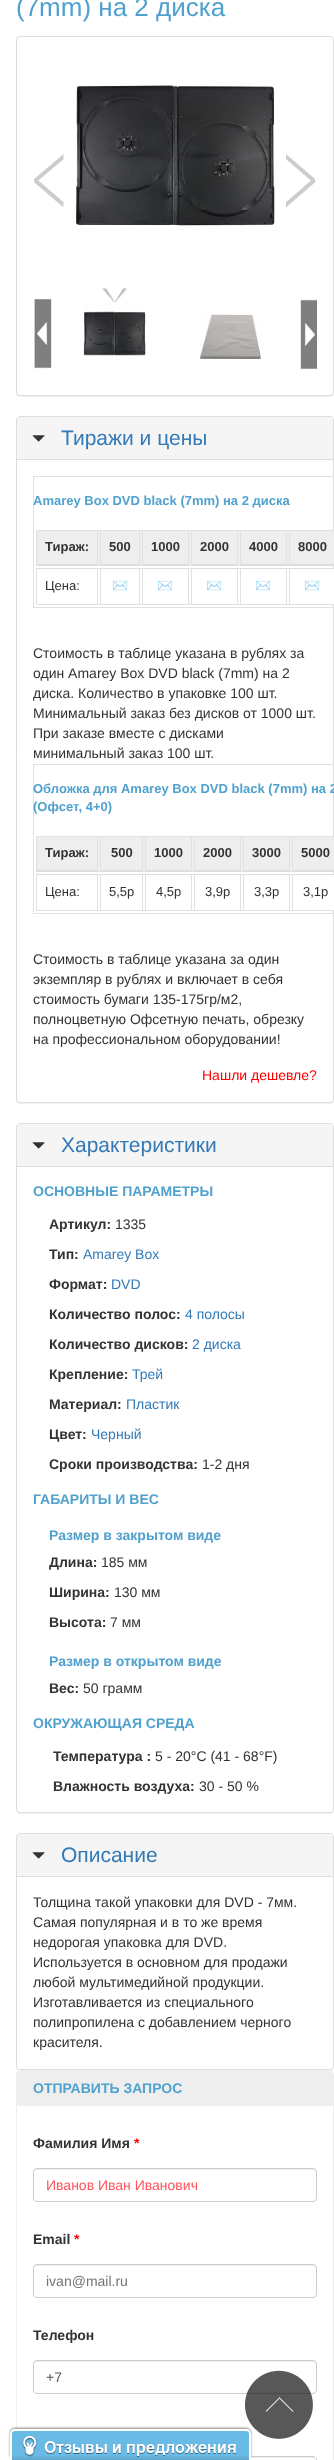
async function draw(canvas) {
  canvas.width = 334
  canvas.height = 2460
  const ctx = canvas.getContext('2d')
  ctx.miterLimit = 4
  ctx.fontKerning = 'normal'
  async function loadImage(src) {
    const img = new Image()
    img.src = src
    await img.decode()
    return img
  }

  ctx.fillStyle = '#fff'
  ctx.fillRect(0, 0, 334, 2460)
  ctx.font = '26px Liberation Sans'
  ctx.fillStyle = '#50a1ce'
  ctx.fillText('(7mm) на 2 диска', 16, 16)
  ctx.fillStyle = '#0000000d'
  ctx.filter = 'blur(0.5px)'
  ctx.beginPath()
  ctx.roundRect(16, 37, 318, 360, 4)
  ctx.fill()
  ctx.filter = 'none'
  ctx.fillStyle = '#fff'
  ctx.beginPath()
  ctx.roundRect(16.5, 36.5, 317, 359, 3.5)
  ctx.fill()
  ctx.strokeStyle = '#ddd'
  ctx.stroke()
  ctx.drawImage(await loadImage('image0.png'), 34, 154, 30, 53)
  ctx.drawImage(await loadImage('image1.png'), 76, 85, 199, 141)
  ctx.drawImage(await loadImage('image2.png'), 286, 154, 30, 53)
  ctx.drawImage(await loadImage('image3.png'), 34, 299, 18, 70)
  ctx.drawImage(await loadImage('image4.png'), 76, 378, 202, 1)
  ctx.drawImage(await loadImage('image5.png'), 102, 287, 25, 15)
  ctx.drawImage(await loadImage('image6.png'), 83, 302, 63, 54)
  ctx.drawImage(await loadImage('image7.png'), 199, 314, 62, 45)
  ctx.drawImage(await loadImage('image8.png'), 300, 299, 17, 70)
  ctx.fillStyle = '#0000000d'
  ctx.filter = 'blur(0.5px)'
  ctx.beginPath()
  ctx.roundRect(16, 417, 318, 687, 4)
  ctx.fill()
  ctx.filter = 'none'
  ctx.fillStyle = '#fff'
  ctx.beginPath()
  ctx.roundRect(16.5, 416.5, 317, 686, 3.5)
  ctx.fill()
  ctx.stroke()
  ctx.fillStyle = '#f5f5f5'
  ctx.beginPath()
  ctx.roundRect(17, 417, 316, 43, [3, 3, 0, 0])
  ctx.fill()
  ctx.fillStyle = '#ddd'
  ctx.fillRect(17, 459, 316, 1)
  ctx.drawImage(await loadImage('image9.png'), 32, 435, 13, 7)
  ctx.font = '21px Liberation Sans'
  ctx.fillStyle = '#337ab7'
  ctx.fillText('Тиражи и цены', 61, 445)
  ctx.strokeStyle = '#e1e1e1'
  ctx.strokeRect(33.5, 476.5, 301, 131)
  ctx.font = 'bold 13px Liberation Sans'
  ctx.fillStyle = '#50a1ce'
  ctx.fillText('Amarey Box DVD black (7mm) на 2 диска', 33, 505)
  ctx.fillStyle = '#eee'
  ctx.beginPath()
  ctx.rect(36.5, 530.5, 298, 35)
  ctx.fill()
  ctx.stroke()
  ctx.fillStyle = '#e1e1e1'
  ctx.beginPath()
  ctx.moveTo(98, 530)
  ctx.lineTo(98, 566)
  ctx.lineTo(97, 564)
  ctx.lineTo(97, 530)
  ctx.closePath()
  ctx.fill()
  ctx.fillStyle = '#ddd'
  ctx.beginPath()
  ctx.moveTo(98, 566)
  ctx.lineTo(36, 566)
  ctx.lineTo(37, 564)
  ctx.lineTo(97, 564)
  ctx.closePath()
  ctx.fill()
  ctx.fillStyle = '#333'
  ctx.fillText('Тираж:', 45, 551)
  ctx.fillStyle = '#e1e1e1'
  ctx.beginPath()
  ctx.moveTo(140, 530)
  ctx.lineTo(140, 566)
  ctx.lineTo(139, 564)
  ctx.lineTo(139, 530)
  ctx.closePath()
  ctx.fill()
  ctx.fillStyle = '#ddd'
  ctx.beginPath()
  ctx.moveTo(140, 566)
  ctx.lineTo(100, 566)
  ctx.lineTo(101, 564)
  ctx.lineTo(139, 564)
  ctx.closePath()
  ctx.fill()
  ctx.fillStyle = '#e1e1e1'
  ctx.beginPath()
  ctx.moveTo(100, 566)
  ctx.lineTo(100, 530)
  ctx.lineTo(101, 530)
  ctx.lineTo(101, 564)
  ctx.closePath()
  ctx.fill()
  ctx.fillStyle = '#333'
  ctx.fillText('500', 109, 551)
  ctx.fillStyle = '#e1e1e1'
  ctx.beginPath()
  ctx.moveTo(189, 530)
  ctx.lineTo(189, 566)
  ctx.lineTo(188, 564)
  ctx.lineTo(188, 530)
  ctx.closePath()
  ctx.fill()
  ctx.fillStyle = '#ddd'
  ctx.beginPath()
  ctx.moveTo(189, 566)
  ctx.lineTo(142, 566)
  ctx.lineTo(143, 564)
  ctx.lineTo(188, 564)
  ctx.closePath()
  ctx.fill()
  ctx.fillStyle = '#e1e1e1'
  ctx.beginPath()
  ctx.moveTo(142, 566)
  ctx.lineTo(142, 530)
  ctx.lineTo(143, 530)
  ctx.lineTo(143, 564)
  ctx.closePath()
  ctx.fill()
  ctx.fillStyle = '#333'
  ctx.fillText('1000', 151, 551)
  ctx.fillStyle = '#e1e1e1'
  ctx.beginPath()
  ctx.moveTo(238, 530)
  ctx.lineTo(238, 566)
  ctx.lineTo(237, 564)
  ctx.lineTo(237, 530)
  ctx.closePath()
  ctx.fill()
  ctx.fillStyle = '#ddd'
  ctx.beginPath()
  ctx.moveTo(238, 566)
  ctx.lineTo(191, 566)
  ctx.lineTo(192, 564)
  ctx.lineTo(237, 564)
  ctx.closePath()
  ctx.fill()
  ctx.fillStyle = '#e1e1e1'
  ctx.beginPath()
  ctx.moveTo(191, 566)
  ctx.lineTo(191, 530)
  ctx.lineTo(192, 530)
  ctx.lineTo(192, 564)
  ctx.closePath()
  ctx.fill()
  ctx.fillStyle = '#333'
  ctx.fillText('2000', 200, 551)
  ctx.fillStyle = '#e1e1e1'
  ctx.beginPath()
  ctx.moveTo(287, 530)
  ctx.lineTo(287, 566)
  ctx.lineTo(286, 564)
  ctx.lineTo(286, 530)
  ctx.closePath()
  ctx.fill()
  ctx.fillStyle = '#ddd'
  ctx.beginPath()
  ctx.moveTo(287, 566)
  ctx.lineTo(240, 566)
  ctx.lineTo(241, 564)
  ctx.lineTo(286, 564)
  ctx.closePath()
  ctx.fill()
  ctx.fillStyle = '#e1e1e1'
  ctx.beginPath()
  ctx.moveTo(240, 566)
  ctx.lineTo(240, 530)
  ctx.lineTo(241, 530)
  ctx.lineTo(241, 564)
  ctx.closePath()
  ctx.fill()
  ctx.fillStyle = '#333'
  ctx.fillText('4000', 249, 551)
  ctx.fillStyle = '#ddd'
  ctx.beginPath()
  ctx.moveTo(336, 566)
  ctx.lineTo(289, 566)
  ctx.lineTo(290, 564)
  ctx.lineTo(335, 564)
  ctx.closePath()
  ctx.fill()
  ctx.fillStyle = '#e1e1e1'
  ctx.beginPath()
  ctx.moveTo(289, 566)
  ctx.lineTo(289, 530)
  ctx.lineTo(290, 530)
  ctx.lineTo(290, 564)
  ctx.closePath()
  ctx.fill()
  ctx.fillStyle = '#333'
  ctx.fillText('8000', 298, 551)
  ctx.fillStyle = '#fff'
  ctx.fillRect(333, 569, 1, 35)
  ctx.strokeRect(36.5, 568.5, 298, 36)
  ctx.fillStyle = '#ddd'
  ctx.fillRect(36, 568, 62, 1)
  ctx.fillStyle = '#e1e1e1'
  ctx.fillRect(97, 568, 1, 37)
  ctx.fillRect(36, 568, 1, 1)
  ctx.font = '13px Liberation Sans'
  ctx.fillStyle = '#333'
  ctx.fillText('Цена:', 45, 590)
  ctx.fillStyle = '#ddd'
  ctx.fillRect(100, 568, 40, 1)
  ctx.fillStyle = '#e1e1e1'
  ctx.fillRect(139, 568, 1, 37)
  ctx.fillRect(100, 568, 1, 37)
  ctx.font = '13px Noto Color Emoji'
  ctx.fillStyle = '#333'
  ctx.fillText('✉️', 112, 590)
  ctx.fillStyle = '#ddd'
  ctx.fillRect(142, 568, 47, 1)
  ctx.fillStyle = '#e1e1e1'
  ctx.fillRect(188, 568, 1, 37)
  ctx.fillRect(142, 568, 1, 37)
  ctx.fillStyle = '#333'
  ctx.fillText('✉️', 157, 590)
  ctx.fillStyle = '#ddd'
  ctx.fillRect(191, 568, 47, 1)
  ctx.fillStyle = '#e1e1e1'
  ctx.fillRect(237, 568, 1, 37)
  ctx.fillRect(191, 568, 1, 37)
  ctx.fillStyle = '#333'
  ctx.fillText('✉️', 206, 590)
  ctx.fillStyle = '#ddd'
  ctx.fillRect(240, 568, 47, 1)
  ctx.fillStyle = '#e1e1e1'
  ctx.fillRect(286, 568, 1, 37)
  ctx.fillRect(240, 568, 1, 37)
  ctx.fillStyle = '#333'
  ctx.fillText('✉️', 255, 590)
  ctx.fillStyle = '#ddd'
  ctx.fillRect(289, 568, 45, 1)
  ctx.fillStyle = '#e1e1e1'
  ctx.fillRect(289, 568, 1, 37)
  ctx.fillStyle = '#333'
  ctx.fillText('✉️', 304, 590)
  ctx.font = '14px Liberation Sans'
  ctx.fillText('Стоимость в таблице указана в рублях за', 33, 658)
  ctx.fillText('один Amarey Box DVD black (7mm) на 2', 33, 678)
  ctx.fillText('диска. Количество в упаковке 100 шт.', 33, 698)
  ctx.fillText('Минимальный заказ без дисков от 1000 шт.', 33, 718)
  ctx.fillText('При заказе вместе с дисками', 33, 738)
  ctx.fillText('минимальный заказ 100 шт.', 33, 758)
  ctx.strokeRect(33.5, 764.5, 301, 149)
  ctx.font = 'bold 13px Liberation Sans'
  ctx.fillStyle = '#50a1ce'
  ctx.fillText('Обложка для Amarey Box DVD black (7mm) на 2', 33, 793)
  ctx.fillText('(Офсет, 4+0)', 33, 811)
  ctx.fillStyle = '#eee'
  ctx.beginPath()
  ctx.rect(36.5, 836.5, 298, 35)
  ctx.fill()
  ctx.stroke()
  ctx.fillStyle = '#e1e1e1'
  ctx.beginPath()
  ctx.moveTo(98, 836)
  ctx.lineTo(98, 872)
  ctx.lineTo(97, 870)
  ctx.lineTo(97, 836)
  ctx.closePath()
  ctx.fill()
  ctx.fillStyle = '#ddd'
  ctx.beginPath()
  ctx.moveTo(98, 872)
  ctx.lineTo(36, 872)
  ctx.lineTo(37, 870)
  ctx.lineTo(97, 870)
  ctx.closePath()
  ctx.fill()
  ctx.fillStyle = '#333'
  ctx.fillText('Тираж:', 45, 857)
  ctx.fillStyle = '#e1e1e1'
  ctx.beginPath()
  ctx.moveTo(143, 836)
  ctx.lineTo(143, 872)
  ctx.lineTo(142, 870)
  ctx.lineTo(142, 836)
  ctx.closePath()
  ctx.fill()
  ctx.fillStyle = '#ddd'
  ctx.beginPath()
  ctx.moveTo(143, 872)
  ctx.lineTo(100, 872)
  ctx.lineTo(101, 870)
  ctx.lineTo(142, 870)
  ctx.closePath()
  ctx.fill()
  ctx.fillStyle = '#e1e1e1'
  ctx.beginPath()
  ctx.moveTo(100, 872)
  ctx.lineTo(100, 836)
  ctx.lineTo(101, 836)
  ctx.lineTo(101, 870)
  ctx.closePath()
  ctx.fill()
  ctx.fillStyle = '#333'
  ctx.fillText('500', 111, 857)
  ctx.fillStyle = '#e1e1e1'
  ctx.beginPath()
  ctx.moveTo(192, 836)
  ctx.lineTo(192, 872)
  ctx.lineTo(191, 870)
  ctx.lineTo(191, 836)
  ctx.closePath()
  ctx.fill()
  ctx.fillStyle = '#ddd'
  ctx.beginPath()
  ctx.moveTo(192, 872)
  ctx.lineTo(145, 872)
  ctx.lineTo(146, 870)
  ctx.lineTo(191, 870)
  ctx.closePath()
  ctx.fill()
  ctx.fillStyle = '#e1e1e1'
  ctx.beginPath()
  ctx.moveTo(145, 872)
  ctx.lineTo(145, 836)
  ctx.lineTo(146, 836)
  ctx.lineTo(146, 870)
  ctx.closePath()
  ctx.fill()
  ctx.fillStyle = '#333'
  ctx.fillText('1000', 154, 857)
  ctx.fillStyle = '#e1e1e1'
  ctx.beginPath()
  ctx.moveTo(241, 836)
  ctx.lineTo(241, 872)
  ctx.lineTo(240, 870)
  ctx.lineTo(240, 836)
  ctx.closePath()
  ctx.fill()
  ctx.fillStyle = '#ddd'
  ctx.beginPath()
  ctx.moveTo(241, 872)
  ctx.lineTo(194, 872)
  ctx.lineTo(195, 870)
  ctx.lineTo(240, 870)
  ctx.closePath()
  ctx.fill()
  ctx.fillStyle = '#e1e1e1'
  ctx.beginPath()
  ctx.moveTo(194, 872)
  ctx.lineTo(194, 836)
  ctx.lineTo(195, 836)
  ctx.lineTo(195, 870)
  ctx.closePath()
  ctx.fill()
  ctx.fillStyle = '#333'
  ctx.fillText('2000', 203, 857)
  ctx.fillStyle = '#e1e1e1'
  ctx.beginPath()
  ctx.moveTo(290, 836)
  ctx.lineTo(290, 872)
  ctx.lineTo(289, 870)
  ctx.lineTo(289, 836)
  ctx.closePath()
  ctx.fill()
  ctx.fillStyle = '#ddd'
  ctx.beginPath()
  ctx.moveTo(290, 872)
  ctx.lineTo(243, 872)
  ctx.lineTo(244, 870)
  ctx.lineTo(289, 870)
  ctx.closePath()
  ctx.fill()
  ctx.fillStyle = '#e1e1e1'
  ctx.beginPath()
  ctx.moveTo(243, 872)
  ctx.lineTo(243, 836)
  ctx.lineTo(244, 836)
  ctx.lineTo(244, 870)
  ctx.closePath()
  ctx.fill()
  ctx.fillStyle = '#333'
  ctx.fillText('3000', 252, 857)
  ctx.fillStyle = '#ddd'
  ctx.beginPath()
  ctx.moveTo(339, 872)
  ctx.lineTo(292, 872)
  ctx.lineTo(293, 870)
  ctx.lineTo(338, 870)
  ctx.closePath()
  ctx.fill()
  ctx.fillStyle = '#e1e1e1'
  ctx.beginPath()
  ctx.moveTo(292, 872)
  ctx.lineTo(292, 836)
  ctx.lineTo(293, 836)
  ctx.lineTo(293, 870)
  ctx.closePath()
  ctx.fill()
  ctx.fillStyle = '#333'
  ctx.fillText('5000', 301, 857)
  ctx.fillStyle = '#fff'
  ctx.fillRect(333, 875, 1, 35)
  ctx.strokeRect(36.5, 874.5, 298, 36)
  ctx.fillStyle = '#ddd'
  ctx.fillRect(36, 874, 62, 1)
  ctx.fillStyle = '#e1e1e1'
  ctx.fillRect(97, 874, 1, 37)
  ctx.fillRect(36, 874, 1, 1)
  ctx.font = '13px Liberation Sans'
  ctx.fillStyle = '#333'
  ctx.fillText('Цена:', 45, 896)
  ctx.fillStyle = '#ddd'
  ctx.fillRect(100, 874, 43, 1)
  ctx.fillStyle = '#e1e1e1'
  ctx.fillRect(142, 874, 1, 37)
  ctx.fillRect(100, 874, 1, 37)
  ctx.fillStyle = '#333'
  ctx.fillText('5,5р', 109, 896)
  ctx.fillStyle = '#ddd'
  ctx.fillRect(145, 874, 47, 1)
  ctx.fillStyle = '#e1e1e1'
  ctx.fillRect(191, 874, 1, 37)
  ctx.fillRect(145, 874, 1, 37)
  ctx.fillStyle = '#333'
  ctx.fillText('4,5р', 156, 896)
  ctx.fillStyle = '#ddd'
  ctx.fillRect(194, 874, 47, 1)
  ctx.fillStyle = '#e1e1e1'
  ctx.fillRect(240, 874, 1, 37)
  ctx.fillRect(194, 874, 1, 37)
  ctx.fillStyle = '#333'
  ctx.fillText('3,9р', 205, 896)
  ctx.fillStyle = '#ddd'
  ctx.fillRect(243, 874, 47, 1)
  ctx.fillStyle = '#e1e1e1'
  ctx.fillRect(289, 874, 1, 37)
  ctx.fillRect(243, 874, 1, 37)
  ctx.fillStyle = '#333'
  ctx.fillText('3,3р', 254, 896)
  ctx.fillStyle = '#ddd'
  ctx.fillRect(292, 874, 42, 1)
  ctx.fillStyle = '#e1e1e1'
  ctx.fillRect(292, 874, 1, 37)
  ctx.fillStyle = '#333'
  ctx.fillText('3,1р', 303, 896)
  ctx.font = '14px Liberation Sans'
  ctx.fillText('Стоимость в таблице указана за один', 33, 964)
  ctx.fillText('экземпляр в рублях и включает в себя', 33, 984)
  ctx.fillText('стоимость бумаги 135-175гр/м2,', 33, 1004)
  ctx.fillText('полноцветную Офсетную печать, обрезку', 33, 1024)
  ctx.fillText('на профессиональном оборудовании!', 33, 1044)
  ctx.fillStyle = '#f00'
  ctx.fillText('Нашли дешевле?', 202, 1080)
  ctx.fillStyle = '#0000000d'
  ctx.filter = 'blur(0.5px)'
  ctx.beginPath()
  ctx.roundRect(16, 1124, 318, 690, 4)
  ctx.fill()
  ctx.filter = 'none'
  ctx.fillStyle = '#fff'
  ctx.beginPath()
  ctx.roundRect(16.5, 1123.5, 317, 689, 3.5)
  ctx.fill()
  ctx.strokeStyle = '#ddd'
  ctx.stroke()
  ctx.fillStyle = '#f5f5f5'
  ctx.beginPath()
  ctx.roundRect(17, 1124, 316, 43, [3, 3, 0, 0])
  ctx.fill()
  ctx.fillStyle = '#ddd'
  ctx.fillRect(17, 1166, 316, 1)
  ctx.drawImage(await loadImage('image9.png'), 32, 1142, 13, 7)
  ctx.font = '21px Liberation Sans'
  ctx.fillStyle = '#337ab7'
  ctx.fillText('Характеристики', 61, 1152)
  ctx.font = 'bold 14px Liberation Sans'
  ctx.fillStyle = '#50a1ce'
  ctx.fillText('ОСНОВНЫЕ ПАРАМЕТРЫ', 33, 1196)
  ctx.fillStyle = '#333'
  ctx.fillText('Артикул:', 49, 1229)
  ctx.font = '14px Liberation Sans'
  ctx.fillText('1335', 115, 1229)
  ctx.font = 'bold 14px Liberation Sans'
  ctx.fillText('Тип:', 49, 1259)
  ctx.font = '14px Liberation Sans'
  ctx.fillStyle = '#337ab7'
  ctx.fillText('Amarey Box', 83, 1259)
  ctx.font = 'bold 14px Liberation Sans'
  ctx.fillStyle = '#333'
  ctx.fillText('Формат:', 49, 1289)
  ctx.font = '14px Liberation Sans'
  ctx.fillStyle = '#337ab7'
  ctx.fillText('DVD', 111, 1289)
  ctx.font = 'bold 14px Liberation Sans'
  ctx.fillStyle = '#333'
  ctx.fillText('Количество полос:', 49, 1319)
  ctx.font = '14px Liberation Sans'
  ctx.fillStyle = '#337ab7'
  ctx.fillText('4 полосы', 185, 1319)
  ctx.font = 'bold 14px Liberation Sans'
  ctx.fillStyle = '#333'
  ctx.fillText('Количество дисков:', 49, 1349)
  ctx.font = '14px Liberation Sans'
  ctx.fillStyle = '#337ab7'
  ctx.fillText('2 диска', 192, 1349)
  ctx.font = 'bold 14px Liberation Sans'
  ctx.fillStyle = '#333'
  ctx.fillText('Крепление:', 49, 1379)
  ctx.font = '14px Liberation Sans'
  ctx.fillStyle = '#337ab7'
  ctx.fillText('Трей', 132, 1379)
  ctx.font = 'bold 14px Liberation Sans'
  ctx.fillStyle = '#333'
  ctx.fillText('Материал:', 49, 1409)
  ctx.font = '14px Liberation Sans'
  ctx.fillStyle = '#337ab7'
  ctx.fillText('Пластик', 126, 1409)
  ctx.font = 'bold 14px Liberation Sans'
  ctx.fillStyle = '#333'
  ctx.fillText('Цвет:', 49, 1439)
  ctx.font = '14px Liberation Sans'
  ctx.fillStyle = '#337ab7'
  ctx.fillText('Черный', 91, 1439)
  ctx.font = 'bold 14px Liberation Sans'
  ctx.fillStyle = '#333'
  ctx.fillText('Сроки производства:', 49, 1469)
  ctx.font = '14px Liberation Sans'
  ctx.fillText('1-2 дня', 202, 1469)
  ctx.font = 'bold 14px Liberation Sans'
  ctx.fillStyle = '#50a1ce'
  ctx.fillText('ГАБАРИТЫ И ВЕС', 33, 1504)
  ctx.fillText('Размер в закрытом виде', 49, 1540)
  ctx.fillStyle = '#333'
  ctx.fillText('Длина:', 49, 1567)
  ctx.font = '14px Liberation Sans'
  ctx.fillText('185 мм', 101, 1567)
  ctx.font = 'bold 14px Liberation Sans'
  ctx.fillText('Ширина:', 49, 1597)
  ctx.font = '14px Liberation Sans'
  ctx.fillText('130 мм', 114, 1597)
  ctx.font = 'bold 14px Liberation Sans'
  ctx.fillText('Высота:', 49, 1627)
  ctx.font = '14px Liberation Sans'
  ctx.fillText('7 мм', 110, 1627)
  ctx.font = 'bold 14px Liberation Sans'
  ctx.fillStyle = '#50a1ce'
  ctx.fillText('Размер в открытом виде', 49, 1666)
  ctx.fillStyle = '#333'
  ctx.fillText('Вес:', 49, 1693)
  ctx.font = '14px Liberation Sans'
  ctx.fillText('50 грамм', 83, 1693)
  ctx.font = 'bold 14px Liberation Sans'
  ctx.fillStyle = '#50a1ce'
  ctx.fillText('ОКРУЖАЮЩАЯ СРЕДА', 33, 1728)
  ctx.fillStyle = '#333'
  ctx.fillText('Температура :', 53, 1761)
  ctx.font = '14px Liberation Sans'
  ctx.fillText('5 - 20°C (41 - 68°F)', 155, 1761)
  ctx.font = 'bold 14px Liberation Sans'
  ctx.fillText('Влажность воздуха:', 53, 1791)
  ctx.font = '14px Liberation Sans'
  ctx.fillText('30 - 50 %', 199, 1791)
  ctx.fillStyle = '#0000000d'
  ctx.filter = 'blur(0.5px)'
  ctx.beginPath()
  ctx.roundRect(16, 1834, 318, 237, 4)
  ctx.fill()
  ctx.filter = 'none'
  ctx.fillStyle = '#fff'
  ctx.beginPath()
  ctx.roundRect(16.5, 1833.5, 317, 236, 3.5)
  ctx.fill()
  ctx.stroke()
  ctx.fillStyle = '#f5f5f5'
  ctx.beginPath()
  ctx.roundRect(17, 1834, 316, 43, [3, 3, 0, 0])
  ctx.fill()
  ctx.fillStyle = '#ddd'
  ctx.fillRect(17, 1876, 316, 1)
  ctx.drawImage(await loadImage('image9.png'), 32, 1852, 13, 7)
  ctx.font = '21px Liberation Sans'
  ctx.fillStyle = '#337ab7'
  ctx.fillText('Описание', 61, 1862)
  ctx.font = '14px Liberation Sans'
  ctx.fillStyle = '#333'
  ctx.fillText('Толщина такой упаковки для DVD - 7мм.', 33, 1907)
  ctx.fillText('Самая популярная и в то же время', 33, 1927)
  ctx.fillText('недорогая упаковка для DVD.', 33, 1947)
  ctx.fillText('Используется в основном для продажи', 33, 1967)
  ctx.fillText('любой мультимедийной продукции.', 33, 1987)
  ctx.fillText('Изготавливается из специального', 33, 2007)
  ctx.fillText('полипропилена с добавлением черного', 33, 2027)
  ctx.fillText('красителя.', 33, 2047)
  ctx.fillStyle = '#fff'
  ctx.fillRect(17, 2070, 316, 1)
  ctx.beginPath()
  ctx.roundRect(16.5, 2070.5, 317, 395, 4.5)
  ctx.strokeStyle = '#eee'
  ctx.stroke()
  ctx.fillStyle = '#eee'
  ctx.fillRect(17, 2071, 316, 35)
  ctx.font = 'bold 14px Liberation Sans'
  ctx.fillStyle = '#50a1ce'
  ctx.fillText('ОТПРАВИТЬ ЗАПРОС', 33, 2093)
  ctx.fillStyle = '#333'
  ctx.fillText('Фамилия Имя', 33, 2148)
  ctx.fillStyle = '#f00'
  ctx.fillText('*', 134, 2148)
  ctx.fillStyle = '#ececec'
  ctx.beginPath()
  ctx.moveTo(37, 2170)
  ctx.lineTo(313, 2170)
  ctx.bezierCurveTo(315, 2170, 316, 2171, 316, 2173)
  ctx.lineTo(316, 2172)
  ctx.bezierCurveTo(316, 2170, 315, 2169, 313, 2169)
  ctx.lineTo(37, 2169)
  ctx.bezierCurveTo(35, 2169, 34, 2170, 34, 2172)
  ctx.lineTo(34, 2173)
  ctx.bezierCurveTo(34, 2171, 35, 2170, 37, 2170)
  ctx.closePath()
  ctx.fill()
  ctx.beginPath()
  ctx.roundRect(33.5, 2168.5, 283, 33, 3.5)
  ctx.strokeStyle = '#ccc'
  ctx.stroke()
  ctx.font = '14px Liberation Sans'
  ctx.fillStyle = '#ff525b'
  ctx.fillText('Иванов Иван Иванович', 46, 2190)
  ctx.font = 'bold 14px Liberation Sans'
  ctx.fillStyle = '#333'
  ctx.fillText('Email', 33, 2244)
  ctx.fillStyle = '#f00'
  ctx.fillText('*', 74, 2244)
  ctx.fillStyle = '#ececec'
  ctx.beginPath()
  ctx.moveTo(37, 2266)
  ctx.lineTo(313, 2266)
  ctx.bezierCurveTo(315, 2266, 316, 2267, 316, 2269)
  ctx.lineTo(316, 2268)
  ctx.bezierCurveTo(316, 2266, 315, 2265, 313, 2265)
  ctx.lineTo(37, 2265)
  ctx.bezierCurveTo(35, 2265, 34, 2266, 34, 2268)
  ctx.lineTo(34, 2269)
  ctx.bezierCurveTo(34, 2267, 35, 2266, 37, 2266)
  ctx.closePath()
  ctx.fill()
  ctx.beginPath()
  ctx.roundRect(33.5, 2264.5, 283, 33, 3.5)
  ctx.stroke()
  ctx.font = '14px Liberation Sans'
  ctx.fillStyle = '#757575'
  ctx.fillText('ivan@mail.ru', 46, 2286)
  ctx.font = 'bold 14px Liberation Sans'
  ctx.fillStyle = '#333'
  ctx.fillText('Телефон', 33, 2340)
  ctx.fillStyle = '#ececec'
  ctx.beginPath()
  ctx.moveTo(37, 2362)
  ctx.lineTo(313, 2362)
  ctx.bezierCurveTo(315, 2362, 316, 2363, 316, 2365)
  ctx.lineTo(316, 2364)
  ctx.bezierCurveTo(316, 2362, 315, 2361, 313, 2361)
  ctx.lineTo(37, 2361)
  ctx.bezierCurveTo(35, 2361, 34, 2362, 34, 2364)
  ctx.lineTo(34, 2365)
  ctx.bezierCurveTo(34, 2363, 35, 2362, 37, 2362)
  ctx.closePath()
  ctx.fill()
  ctx.beginPath()
  ctx.roundRect(33.5, 2360.5, 283, 33, 3.5)
  ctx.stroke()
  ctx.font = '14px Liberation Sans'
  ctx.fillStyle = '#555'
  ctx.fillText('+7', 46, 2382)
  ctx.fillStyle = '#ececec'
  ctx.beginPath()
  ctx.moveTo(37, 2458)
  ctx.lineTo(313, 2458)
  ctx.bezierCurveTo(315, 2458, 316, 2459, 316, 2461)
  ctx.lineTo(316, 2460)
  ctx.bezierCurveTo(316, 2458, 315, 2457, 313, 2457)
  ctx.lineTo(37, 2457)
  ctx.bezierCurveTo(35, 2457, 34, 2458, 34, 2460)
  ctx.lineTo(34, 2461)
  ctx.bezierCurveTo(34, 2459, 35, 2458, 37, 2458)
  ctx.closePath()
  ctx.fill()
  ctx.beginPath()
  ctx.moveTo(37, 2456.5)
  ctx.lineTo(313, 2456.5)
  ctx.bezierCurveTo(315, 2456.5, 316.5, 2458, 316.5, 2460)
  ctx.lineTo(316.5, 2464.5)
  ctx.lineTo(33.5, 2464.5)
  ctx.lineTo(33.5, 2460)
  ctx.bezierCurveTo(33.5, 2458, 35, 2456.5, 37, 2456.5)
  ctx.closePath()
  ctx.stroke()
  ctx.drawImage(await loadImage('image12.png'), 244, 2370, 69, 69)
  ctx.fillStyle = '#888'
  ctx.filter = 'blur(1px)'
  ctx.beginPath()
  ctx.roundRect(10, 2428, 241, 31, 5)
  ctx.fill()
  ctx.filter = 'none'
  ctx.fillStyle = '#6abae6'
  ctx.beginPath()
  ctx.roundRect(10, 2429, 241, 31, [5, 5, 0, 0])
  ctx.fill()
  ctx.drawImage(await loadImage('image10.png'), 12, 2456, 237, 4)
  ctx.fillStyle = '#fff'
  ctx.beginPath()
  ctx.moveTo(15, 2429)
  ctx.lineTo(246, 2429)
  ctx.bezierCurveTo(249, 2429, 251, 2431, 251, 2434)
  ctx.lineTo(251, 2460)
  ctx.lineTo(10, 2460)
  ctx.lineTo(10, 2434)
  ctx.bezierCurveTo(10, 2431, 12, 2429, 15, 2429)
  ctx.closePath()
  ctx.moveTo(15, 2431)
  ctx.lineTo(246, 2431)
  ctx.bezierCurveTo(248, 2431, 249, 2432, 249, 2434)
  ctx.lineTo(249, 2460)
  ctx.lineTo(12, 2460)
  ctx.lineTo(12, 2434)
  ctx.bezierCurveTo(12, 2432, 13, 2431, 15, 2431)
  ctx.closePath()
  ctx.fill('evenodd')
  ctx.drawImage(await loadImage('image11.png'), 22, 2436, 214, 21)
}

draw(document.querySelector('canvas'))
